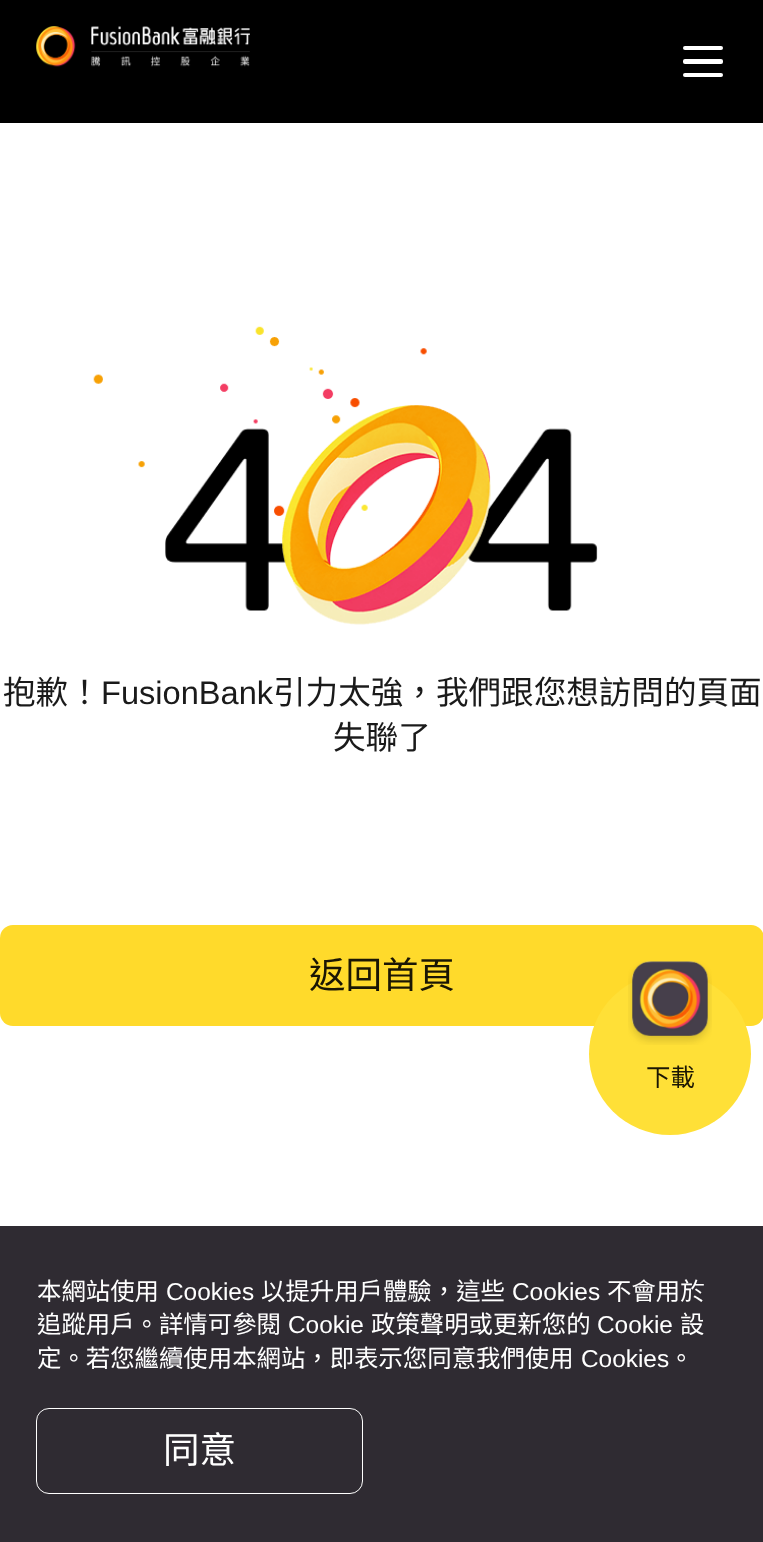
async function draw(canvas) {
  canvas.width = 763
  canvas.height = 1542
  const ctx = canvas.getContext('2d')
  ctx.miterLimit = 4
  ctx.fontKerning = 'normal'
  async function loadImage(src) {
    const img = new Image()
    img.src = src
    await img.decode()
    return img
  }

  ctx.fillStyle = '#fff'
  ctx.fillRect(0, 0, 763, 1542)
  ctx.fillStyle = '#000'
  ctx.fillRect(0, 0, 763, 123)
  ctx.drawImage(await loadImage('image0.png'), 36, 26, 214, 41)
  ctx.fillStyle = '#fff'
  ctx.beginPath()
  ctx.roundRect(683, 46, 40, 4, 2)
  ctx.fill()
  ctx.beginPath()
  ctx.roundRect(683, 59, 40, 5, 2)
  ctx.fill()
  ctx.beginPath()
  ctx.roundRect(683, 73, 40, 4, 2)
  ctx.fill()
  ctx.drawImage(await loadImage('image1.png'), 93, 326, 505, 299)
  ctx.font = '32.6px Noto Sans CJK HK'
  ctx.fillStyle = '#1a1a1a'
  ctx.fillText('抱歉！', 3, 704)
  ctx.font = '32.6px Liberation Sans'
  ctx.fillText('FusionBank', 101, 704)
  ctx.font = '32.6px Noto Sans CJK HK'
  ctx.fillText('引力太強，我們跟您想訪問的頁面', 273, 704)
  ctx.fillText('失聯了', 333, 749)
  ctx.fillStyle = '#ffda2b'
  ctx.beginPath()
  ctx.roundRect(0, 925, 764, 101, 13)
  ctx.fill()
  ctx.font = '36.5px Noto Sans CJK HK'
  ctx.fillStyle = '#1a1604'
  ctx.fillText('返回首頁', 309, 988)
  ctx.fillStyle = '#ffe037'
  ctx.beginPath()
  ctx.arc(670, 1054, 81, 0, 2 * Math.PI)
  ctx.fill()
  ctx.drawImage(await loadImage('image2.png'), 628, 961, 84, 84)
  ctx.font = '24.4px Noto Sans CJK HK'
  ctx.fillStyle = '#1a1604'
  ctx.fillText('下載', 646, 1086)
  ctx.fillStyle = '#2f2b32'
  ctx.fillRect(0, 1226, 763, 316)
  ctx.fillStyle = '#fff'
  ctx.fillText('本網站使用', 37, 1300)
  ctx.font = '24.4px Liberation Sans'
  ctx.fillText('Cookies', 166, 1300)
  ctx.font = '24.4px Noto Sans CJK HK'
  ctx.fillText('以提升用戶體驗，這些', 261, 1300)
  ctx.font = '24.4px Liberation Sans'
  ctx.fillText('Cookies', 512, 1300)
  ctx.font = '24.4px Noto Sans CJK HK'
  ctx.fillText('不會用於', 607, 1300)
  ctx.fillText('追蹤用戶。詳情可參閱', 37, 1333)
  ctx.font = '24.4px Liberation Sans'
  ctx.fillText('Cookie', 288, 1333)
  ctx.font = '24.4px Noto Sans CJK HK'
  ctx.fillText('政策聲明或更新您的', 371, 1333)
  ctx.font = '24.4px Liberation Sans'
  ctx.fillText('Cookie', 597, 1333)
  ctx.font = '24.4px Noto Sans CJK HK'
  ctx.fillText('設', 680, 1333)
  ctx.fillText('定。若您繼續使用本網站，即表示您同意我們使用', 37, 1367)
  ctx.font = '24.4px Liberation Sans'
  ctx.fillText('Cookies', 581, 1367)
  ctx.font = '24.4px Noto Sans CJK HK'
  ctx.fillText('。', 669, 1367)
  ctx.beginPath()
  ctx.roundRect(36.5, 1408.5, 326, 85, 12.5)
  ctx.strokeStyle = '#fff'
  ctx.stroke()
  ctx.font = '36.5px Noto Sans CJK HK'
  ctx.fillText('同意', 163, 1463)
}

draw(document.querySelector('canvas'))
